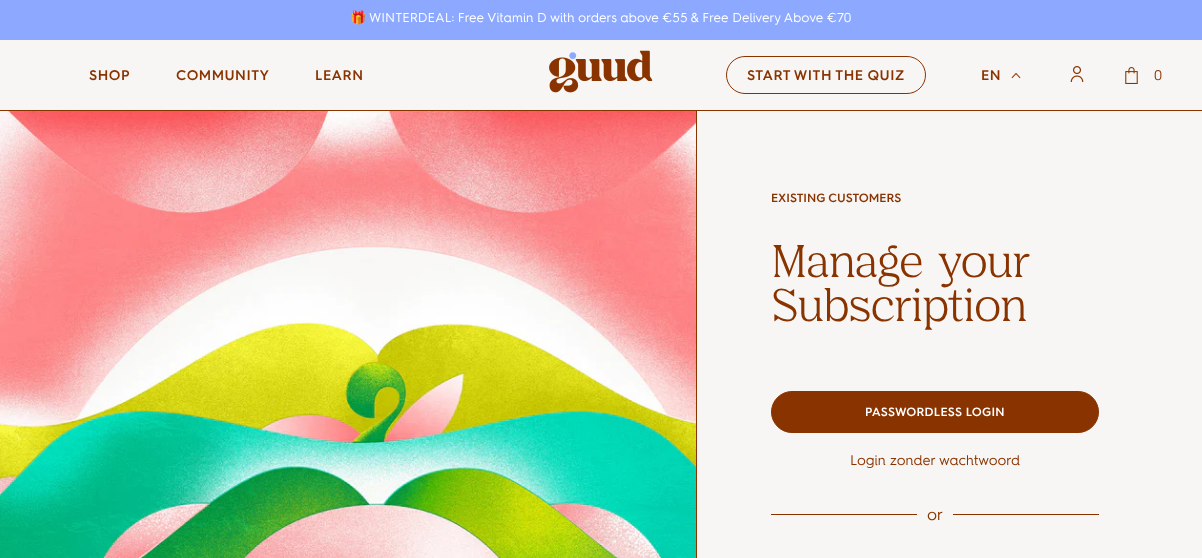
async function draw(canvas) {
  canvas.width = 1202
  canvas.height = 558
  const ctx = canvas.getContext('2d')
  ctx.miterLimit = 4
  ctx.fontKerning = 'normal'
  async function loadImage(src) {
    const img = new Image()
    img.src = src
    await img.decode()
    return img
  }

  ctx.fillStyle = '#8ca8ff'
  ctx.fillRect(0, 0, 1202, 558)
  ctx.font = '13px Noto Color Emoji'
  ctx.fillStyle = '#fff'
  ctx.fillText('🎁', 350, 22)
  ctx.font = '13px "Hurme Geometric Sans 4"'
  ctx.fillText('WINTERDEAL: Free Vitamin D with orders above €55 & Free Delivery Above €70', 369, 22)
  ctx.fillStyle = '#893400'
  ctx.fillRect(696, 110, 1, 448)
  ctx.fillRect(0, 110, 1202, 1)
  ctx.fillStyle = '#f7f6f4'
  ctx.fillRect(0, 40, 1202, 70)
  ctx.letterSpacing = '0.5px'
  ctx.font = '600 14px "Hurme Geometric Sans 4"'
  ctx.fillStyle = '#893400'
  ctx.fillText('SHOP', 89, 80)
  ctx.fillText('COMMUNITY', 176, 80)
  ctx.fillText('LEARN', 315, 80)
  ctx.drawImage(await loadImage('image0.png'), 549, 50, 104, 43)
  ctx.beginPath()
  ctx.roundRect(726.5, 56.5, 199, 37, 18.5)
  ctx.strokeStyle = '#893400'
  ctx.stroke()
  ctx.fillText('START WITH THE QUIZ', 747, 80)
  ctx.fillText('EN', 981, 80)
  ctx.drawImage(await loadImage('image1.png'), 1011, 72, 10, 7)
  ctx.drawImage(await loadImage('image2.png'), 1070, 66, 14, 16)
  ctx.drawImage(await loadImage('image3.png'), 1125, 67, 13, 17)
  ctx.letterSpacing = '0px'
  ctx.font = '14px "Hurme Geometric Sans 4"'
  ctx.fillText('0', 1154, 80)
  ctx.fillStyle = '#f7f6f4'
  ctx.fillRect(697, 111, 505, 447)
  ctx.drawImage(await loadImage('image4.png'), 0, 111, 696, 447)
  ctx.font = '600 12px "Hurme Geometric Sans 4"'
  ctx.fillStyle = '#893400'
  ctx.fillText('EXISTING CUSTOMERS', 771, 202)
  ctx.letterSpacing = '-1px'
  ctx.font = '44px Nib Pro'
  ctx.fillText('Manage', 771, 277)
  ctx.fillText('your', 938, 277)
  ctx.fillText('Subscription', 771, 321)
  ctx.beginPath()
  ctx.roundRect(771.5, 391.5, 327, 41, 20.5)
  ctx.fill()
  ctx.stroke()
  ctx.letterSpacing = '0.25px'
  ctx.font = '600 12px "Hurme Geometric Sans 4"'
  ctx.fillStyle = '#fff'
  ctx.fillText('PASSWORDLESS LOGIN', 865, 416)
  ctx.letterSpacing = '0px'
  ctx.font = '14px "Hurme Geometric Sans 4"'
  ctx.fillStyle = '#893400'
  ctx.fillText('Login zonder wachtwoord', 850, 465)
  ctx.fillRect(771, 514, 146, 1)
  ctx.font = '16px "Hurme Geometric Sans 4"'
  ctx.fillText('or', 927, 520)
  ctx.fillRect(953, 514, 146, 1)
}

draw(document.querySelector('canvas'))
